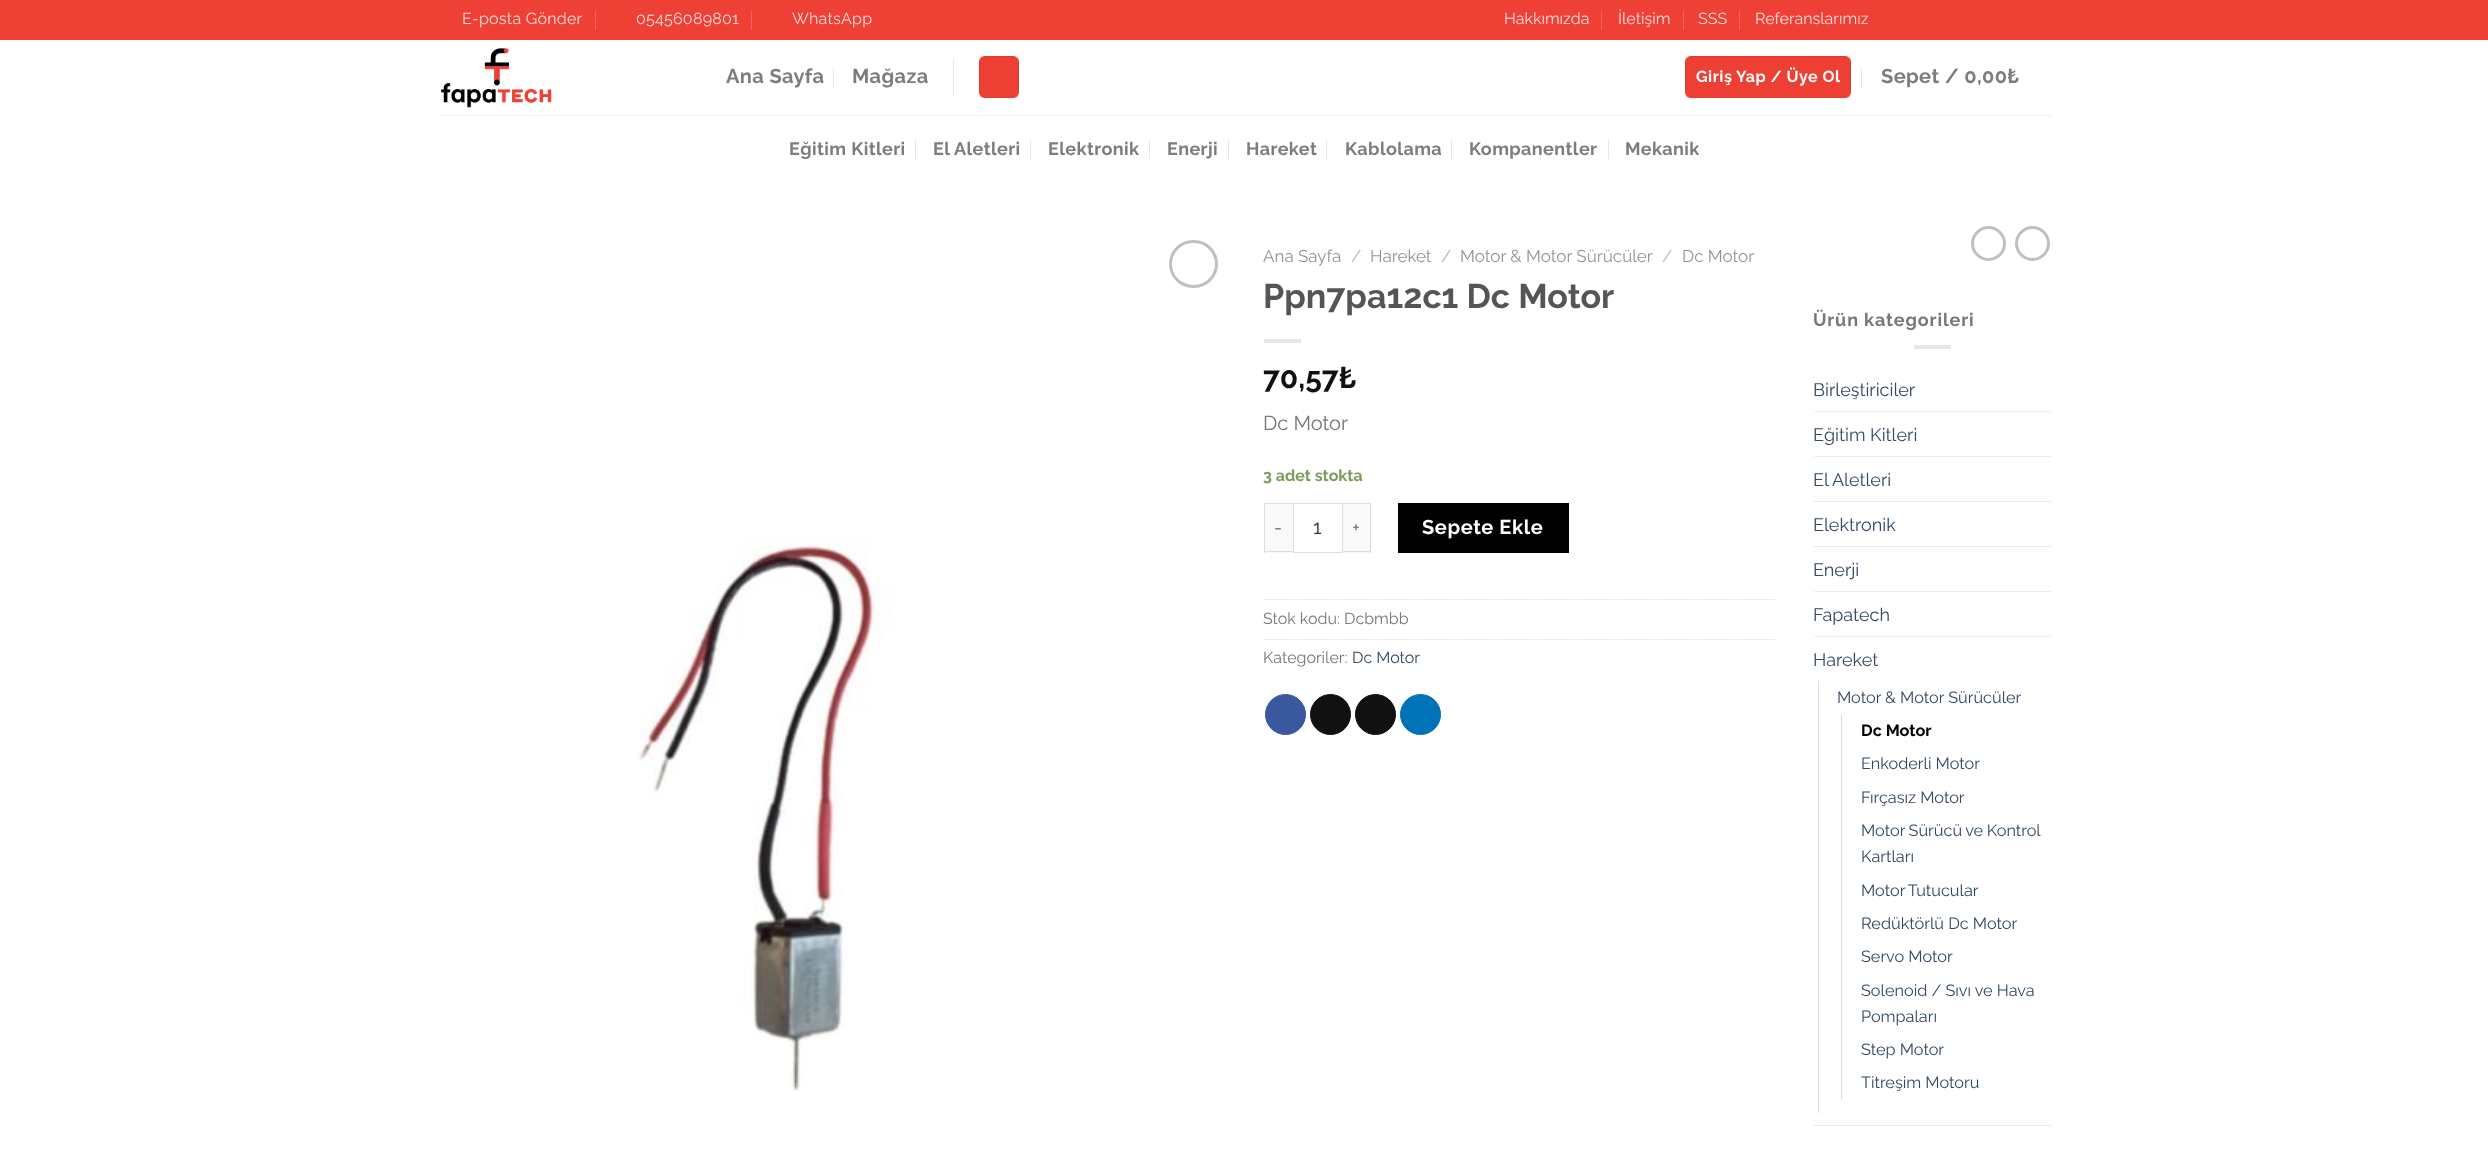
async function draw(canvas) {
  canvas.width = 2488
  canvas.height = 1149
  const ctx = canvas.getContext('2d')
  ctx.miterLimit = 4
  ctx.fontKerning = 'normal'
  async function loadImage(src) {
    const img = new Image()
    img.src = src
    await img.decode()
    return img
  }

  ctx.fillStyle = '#fff'
  ctx.fillRect(0, 0, 2488, 1149)
  ctx.fillStyle = '#ef4036'
  ctx.fillRect(0, 0, 2488, 40)
  ctx.letterSpacing = '0.25px'
  ctx.font = '16px Raleway'
  ctx.fillStyle = '#fcd9d7'
  ctx.fillText('E-posta Gönder', 462, 24)
  ctx.fillStyle = '#f2665e'
  ctx.fillRect(595, 11, 1, 19)
  ctx.fillStyle = '#fcd9d7'
  ctx.fillText('05456089801', 636, 24)
  ctx.fillStyle = '#f2665e'
  ctx.fillRect(751, 11, 1, 19)
  ctx.fillStyle = '#fcd9d7'
  ctx.fillText('WhatsApp', 792, 24)
  ctx.letterSpacing = '0px'
  ctx.fillText('Hakkımızda', 1504, 24)
  ctx.fillStyle = '#f2665e'
  ctx.fillRect(1601, 11, 1, 19)
  ctx.fillStyle = '#fcd9d7'
  ctx.fillText('İletişim', 1618, 24)
  ctx.fillStyle = '#f2665e'
  ctx.fillRect(1683, 11, 1, 19)
  ctx.fillStyle = '#fcd9d7'
  ctx.fillText('SSS', 1698, 24)
  ctx.fillStyle = '#f2665e'
  ctx.fillRect(1739, 11, 1, 19)
  ctx.fillStyle = '#fcd9d7'
  ctx.fillText('Referanslarımız', 1755, 24)
  ctx.drawImage(await loadImage('image0.png'), 440, 48, 112, 60)
  ctx.letterSpacing = '0.4px'
  ctx.font = 'bold 20px Raleway'
  ctx.fillStyle = '#7d7d7d'
  ctx.fillText('Ana Sayfa', 726, 83)
  ctx.fillStyle = '#e6e6e6'
  ctx.fillRect(833, 69, 1, 19)
  ctx.fillStyle = '#7d7d7d'
  ctx.fillText('Mağaza', 852, 83)
  ctx.fillStyle = '#e6e6e6'
  ctx.fillRect(953, 59, 1, 37)
  ctx.fillStyle = '#ee3f35'
  ctx.beginPath()
  ctx.roundRect(979, 56, 40, 42, 6)
  ctx.fill()
  ctx.strokeStyle = '#0000000d'
  ctx.strokeRect(979.5, 56.5, 39, 41)
  ctx.beginPath()
  ctx.roundRect(1685, 56, 166, 42, 6)
  ctx.fill()
  ctx.strokeRect(1685.5, 56.5, 165, 41)
  ctx.letterSpacing = '0.5px'
  ctx.font = 'bold 16px Raleway'
  ctx.fillStyle = '#fff'
  ctx.fillText('Giriş Yap / Üye Ol', 1696, 82)
  ctx.fillStyle = '#e6e6e6'
  ctx.fillRect(1861, 69, 1, 19)
  ctx.letterSpacing = '0.4px'
  ctx.font = 'bold 20px Raleway'
  ctx.fillStyle = '#7d7d7d'
  ctx.fillText('Sepet / 0,00₺', 1881, 83)
  ctx.fillStyle = '#f1f1f1'
  ctx.fillRect(439, 115, 1612, 1)
  ctx.font = 'bold 18px Raleway'
  ctx.fillStyle = '#7d7d7d'
  ctx.fillText('Eğitim Kitleri', 789, 155)
  ctx.fillStyle = '#e6e6e6'
  ctx.fillRect(915, 140, 1, 19)
  ctx.fillStyle = '#7d7d7d'
  ctx.fillText('El Aletleri', 933, 155)
  ctx.fillStyle = '#e6e6e6'
  ctx.fillRect(1030, 140, 1, 19)
  ctx.fillStyle = '#7d7d7d'
  ctx.fillText('Elektronik', 1048, 155)
  ctx.fillStyle = '#e6e6e6'
  ctx.fillRect(1149, 140, 1, 19)
  ctx.fillStyle = '#7d7d7d'
  ctx.fillText('Enerji', 1167, 155)
  ctx.fillStyle = '#e6e6e6'
  ctx.fillRect(1228, 140, 1, 19)
  ctx.fillStyle = '#7d7d7d'
  ctx.fillText('Hareket', 1246, 155)
  ctx.fillStyle = '#e6e6e6'
  ctx.fillRect(1326, 140, 1, 19)
  ctx.fillStyle = '#7d7d7d'
  ctx.fillText('Kablolama', 1345, 155)
  ctx.fillStyle = '#e6e6e6'
  ctx.fillRect(1451, 140, 1, 19)
  ctx.fillStyle = '#7d7d7d'
  ctx.fillText('Kompanentler', 1469, 155)
  ctx.fillStyle = '#e6e6e6'
  ctx.fillRect(1608, 140, 1, 19)
  ctx.fillStyle = '#7d7d7d'
  ctx.fillText('Mekanik', 1625, 155)
  ctx.beginPath()
  ctx.roundRect(1170.5, 241.5, 46, 45, 22.5)
  ctx.strokeStyle = '#c0c0c0'
  ctx.lineWidth = 3
  ctx.stroke()
  ctx.drawImage(await loadImage('image1.png'), 638, 536, 254, 555)
  ctx.letterSpacing = '0px'
  ctx.font = '17px Raleway'
  ctx.fillStyle = '#949494'
  ctx.fillText('Ana Sayfa', 1263, 262)
  ctx.fillStyle = '#b2b2b2'
  ctx.fillText('/', 1351, 262)
  ctx.fillStyle = '#949494'
  ctx.fillText('Hareket', 1370, 262)
  ctx.fillStyle = '#b2b2b2'
  ctx.fillText('/', 1441, 262)
  ctx.fillStyle = '#949494'
  ctx.fillText('Motor & Motor Sürücüler', 1460, 262)
  ctx.fillStyle = '#b2b2b2'
  ctx.fillText('/', 1662, 262)
  ctx.fillStyle = '#949494'
  ctx.fillText('Dc Motor', 1682, 262)
  ctx.font = 'bold 34px Raleway'
  ctx.fillStyle = '#555'
  ctx.fillText('Ppn7pa12c1 Dc Motor', 1263, 308)
  ctx.fillStyle = '#e6e6e6'
  ctx.fillRect(1264, 339, 37, 4)
  ctx.font = 'bold 30px Raleway'
  ctx.fillStyle = '#111'
  ctx.fillText('70,57₺', 1263, 388)
  ctx.font = '20px Raleway'
  ctx.fillStyle = '#777'
  ctx.fillText('Dc Motor', 1263, 430)
  ctx.font = 'bold 16px Raleway'
  ctx.fillStyle = '#7a9c59'
  ctx.fillText('3 adet stokta', 1263, 481)
  ctx.fillStyle = '#f9f9f9'
  ctx.fillRect(1265, 504, 28, 49)
  ctx.fillStyle = '#ddd'
  ctx.fillRect(1264, 503, 29, 1)
  ctx.fillRect(1264, 551, 29, 1)
  ctx.fillRect(1264, 503, 1, 50)
  ctx.letterSpacing = '1px'
  ctx.font = '19px Raleway'
  ctx.fillStyle = '#666'
  ctx.fillText('-', 1274, 534)
  ctx.strokeStyle = '#ddd'
  ctx.lineWidth = 1
  ctx.strokeRect(1293.5, 503.5, 49, 49)
  ctx.letterSpacing = '0px'
  ctx.font = '20px Raleway'
  ctx.fillStyle = '#333'
  ctx.fillText('1', 1313, 534)
  ctx.fillStyle = '#f9f9f9'
  ctx.fillRect(1343, 504, 27, 49)
  ctx.fillStyle = '#ddd'
  ctx.fillRect(1343, 503, 28, 1)
  ctx.fillRect(1370, 503, 1, 50)
  ctx.fillRect(1343, 551, 28, 1)
  ctx.letterSpacing = '1px'
  ctx.font = '19px Raleway'
  ctx.fillStyle = '#666'
  ctx.fillText('+', 1352, 534)
  ctx.fillStyle = '#010101'
  ctx.fillRect(1398, 503, 171, 50)
  ctx.letterSpacing = '0.6px'
  ctx.font = 'bold 20px Raleway'
  ctx.fillStyle = '#fff'
  ctx.fillText('Sepete Ekle', 1422, 534)
  ctx.beginPath()
  ctx.moveTo(1264, 599.5)
  ctx.lineTo(1776, 599.5)
  ctx.lineWidth = 1.2
  ctx.setLineDash([1.25, 1.25])
  ctx.stroke()
  ctx.letterSpacing = '0px'
  ctx.font = '16px Raleway'
  ctx.fillStyle = '#777'
  ctx.fillText('Stok kodu: Dcbmbb', 1263, 624)
  ctx.beginPath()
  ctx.moveTo(1264, 639.5)
  ctx.lineTo(1776, 639.5)
  ctx.stroke()
  ctx.fillText('Kategoriler:', 1263, 663)
  ctx.fillStyle = '#334862'
  ctx.fillText('Dc Motor', 1352, 663)
  ctx.fillStyle = '#3a589d'
  ctx.beginPath()
  ctx.arc(1285.5, 714.5, 20, 0, 2 * Math.PI)
  ctx.fill()
  ctx.strokeStyle = '#3a589d'
  ctx.lineWidth = 1
  ctx.setLineDash([])
  ctx.stroke()
  ctx.fillStyle = '#111'
  ctx.beginPath()
  ctx.arc(1330.5, 714.5, 20, 0, 2 * Math.PI)
  ctx.fill()
  ctx.strokeStyle = '#111'
  ctx.stroke()
  ctx.beginPath()
  ctx.arc(1375.5, 714.5, 20, 0, 2 * Math.PI)
  ctx.fill()
  ctx.stroke()
  ctx.fillStyle = '#0072b7'
  ctx.beginPath()
  ctx.arc(1420.5, 714.5, 20, 0, 2 * Math.PI)
  ctx.fill()
  ctx.strokeStyle = '#0072b7'
  ctx.stroke()
  ctx.beginPath()
  ctx.arc(1988.5, 243.5, 16, 0, 2 * Math.PI)
  ctx.strokeStyle = '#c0c0c0'
  ctx.lineWidth = 3
  ctx.stroke()
  ctx.beginPath()
  ctx.arc(2032.5, 243.5, 16, 0, 2 * Math.PI)
  ctx.stroke()
  ctx.letterSpacing = '0.9px'
  ctx.font = 'bold 18px Raleway'
  ctx.fillStyle = '#777'
  ctx.fillText('Ürün kategorileri', 1813, 326)
  ctx.fillStyle = '#e6e6e6'
  ctx.fillRect(1914, 345, 37, 4)
  ctx.letterSpacing = '0px'
  ctx.font = '18px Raleway'
  ctx.fillStyle = '#334862'
  ctx.fillText('Birleştiriciler', 1813, 396)
  ctx.fillStyle = '#ececec'
  ctx.fillRect(1814, 411, 237, 1)
  ctx.fillStyle = '#334862'
  ctx.fillText('Eğitim Kitleri', 1813, 441)
  ctx.fillStyle = '#ececec'
  ctx.fillRect(1814, 456, 237, 1)
  ctx.wordSpacing = '-1px'
  ctx.fillStyle = '#334862'
  ctx.fillText('El Aletleri', 1813, 486)
  ctx.fillStyle = '#ececec'
  ctx.fillRect(1814, 501, 237, 1)
  ctx.wordSpacing = '0px'
  ctx.fillStyle = '#334862'
  ctx.fillText('Elektronik', 1813, 531)
  ctx.fillStyle = '#ececec'
  ctx.fillRect(1814, 546, 237, 1)
  ctx.fillStyle = '#334862'
  ctx.fillText('Enerji', 1813, 576)
  ctx.fillStyle = '#ececec'
  ctx.fillRect(1814, 591, 237, 1)
  ctx.fillStyle = '#334862'
  ctx.fillText('Fapatech', 1813, 621)
  ctx.fillStyle = '#ececec'
  ctx.fillRect(1814, 636, 237, 1)
  ctx.fillStyle = '#334862'
  ctx.fillText('Hareket', 1813, 666)
  ctx.fillStyle = '#ddd'
  ctx.fillRect(1818, 681, 1, 432)
  ctx.font = '16.25px Raleway'
  ctx.fillStyle = '#334862'
  ctx.fillText('Motor & Motor Sürücüler', 1837, 703)
  ctx.fillStyle = '#ddd'
  ctx.fillRect(1841, 715, 1, 385)
  ctx.font = 'bold 16.25px Raleway'
  ctx.fillStyle = '#000'
  ctx.fillText('Dc Motor', 1861, 736)
  ctx.font = '16.25px Raleway'
  ctx.fillStyle = '#334862'
  ctx.fillText('Enkoderli Motor', 1861, 769)
  ctx.fillText('Fırçasız Motor', 1861, 803)
  ctx.wordSpacing = '-0.5px'
  ctx.fillText('Motor Sürücü ve Kontrol', 1861, 836)
  ctx.wordSpacing = '0px'
  ctx.fillText('Kartları', 1861, 862)
  ctx.wordSpacing = '-1px'
  ctx.fillText('Motor Tutucular', 1861, 896)
  ctx.wordSpacing = '0px'
  ctx.fillText('Redüktörlü Dc Motor', 1861, 929)
  ctx.fillText('Servo Motor', 1861, 962)
  ctx.fillText('Solenoid / Sıvı ve Hava', 1861, 996)
  ctx.fillText('Pompaları', 1861, 1022)
  ctx.fillText('Step Motor', 1861, 1055)
  ctx.fillText('Titreşim Motoru', 1861, 1088)
  ctx.fillStyle = '#ececec'
  ctx.fillRect(1814, 1125, 237, 1)
}

draw(document.querySelector('canvas'))
